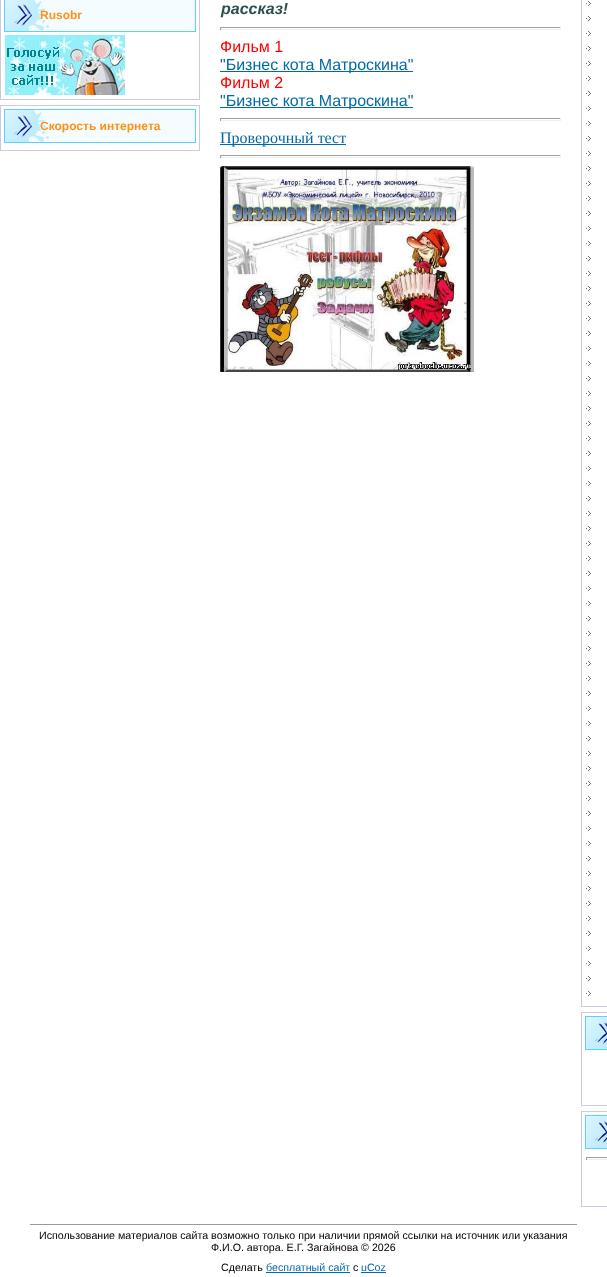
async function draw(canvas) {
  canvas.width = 607
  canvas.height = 1277
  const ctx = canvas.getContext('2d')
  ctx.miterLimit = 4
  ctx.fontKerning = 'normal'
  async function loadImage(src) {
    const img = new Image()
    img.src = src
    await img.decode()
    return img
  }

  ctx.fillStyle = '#fff'
  ctx.fillRect(0, 0, 607, 1277)
  ctx.strokeStyle = '#cacae6'
  ctx.strokeRect(0.5, -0.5, 199, 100)
  ctx.fillStyle = '#f5fcff'
  ctx.fillRect(49, 0, 146, 31)
  ctx.drawImage(await loadImage('image0.png'), 5, 0, 44, 31)
  ctx.strokeStyle = '#5bd1fc'
  ctx.strokeRect(4.5, -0.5, 191, 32)
  ctx.font = 'bold 12px Liberation Sans'
  ctx.fillStyle = '#ff9115'
  ctx.fillText('Rusobr', 40, 19)
  ctx.drawImage(await loadImage('image1.png'), 5, 35, 120, 60)
  ctx.strokeStyle = '#cacae6'
  ctx.strokeRect(0.5, 105.5, 199, 45)
  ctx.fillStyle = '#f5fcff'
  ctx.fillRect(49, 110, 146, 32)
  ctx.drawImage(await loadImage('image2.png'), 5, 110, 44, 32)
  ctx.strokeStyle = '#5bd1fc'
  ctx.strokeRect(4.5, 109.5, 191, 33)
  ctx.fillStyle = '#ff9115'
  ctx.fillText('Скорость интернета', 40, 130)
  ctx.font = 'italic bold 16px Liberation Sans'
  ctx.fillStyle = '#2f4f4f'
  ctx.fillText('рассказ!', 221, 14)
  ctx.fillStyle = '#9f9f9f'
  ctx.fillRect(220, 27, 341, 1)
  ctx.fillStyle = '#eee'
  ctx.fillRect(560, 27, 1, 3)
  ctx.fillRect(220, 29, 341, 1)
  ctx.fillStyle = '#9f9f9f'
  ctx.fillRect(220, 27, 1, 3)
  ctx.font = '16px Liberation Sans'
  ctx.fillStyle = '#f00'
  ctx.fillText('Фильм 1', 220, 52)
  ctx.fillStyle = '#0069a9'
  ctx.fillRect(220, 71, 193, 1)
  ctx.fillText('"Бизнес кота Матроскина"', 220, 70)
  ctx.fillStyle = '#f00'
  ctx.fillText('Фильм 2', 220, 88)
  ctx.fillStyle = '#0069a9'
  ctx.fillRect(220, 107, 193, 1)
  ctx.fillText('"Бизнес кота Матроскина"', 220, 106)
  ctx.fillStyle = '#9f9f9f'
  ctx.fillRect(220, 118, 341, 1)
  ctx.fillStyle = '#eee'
  ctx.fillRect(560, 118, 1, 3)
  ctx.fillRect(220, 120, 341, 1)
  ctx.fillStyle = '#9f9f9f'
  ctx.fillRect(220, 118, 1, 3)
  ctx.fillStyle = '#0069a9'
  ctx.fillRect(220, 144, 126, 1)
  ctx.font = '16px Liberation Serif'
  ctx.fillText('Проверочный тест', 220, 143)
  ctx.fillStyle = '#9f9f9f'
  ctx.fillRect(220, 155, 341, 1)
  ctx.fillStyle = '#eee'
  ctx.fillRect(560, 155, 1, 3)
  ctx.fillRect(220, 157, 341, 1)
  ctx.fillStyle = '#9f9f9f'
  ctx.fillRect(220, 155, 1, 3)
  ctx.drawImage(await loadImage('image3.png'), 220, 166, 254, 206)
  ctx.strokeStyle = '#cacae6'
  ctx.strokeRect(581.5, -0.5, 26, 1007)
  ctx.drawImage(await loadImage('image4.png'), 586, 1, 5, 5)
  ctx.drawImage(await loadImage('image4.png'), 586, 16, 5, 5)
  ctx.drawImage(await loadImage('image4.png'), 586, 31, 5, 5)
  ctx.drawImage(await loadImage('image4.png'), 586, 46, 5, 5)
  ctx.drawImage(await loadImage('image4.png'), 586, 61, 5, 5)
  ctx.drawImage(await loadImage('image4.png'), 586, 76, 5, 5)
  ctx.drawImage(await loadImage('image4.png'), 586, 91, 5, 5)
  ctx.drawImage(await loadImage('image4.png'), 586, 106, 5, 5)
  ctx.drawImage(await loadImage('image4.png'), 586, 121, 5, 5)
  ctx.drawImage(await loadImage('image4.png'), 586, 136, 5, 5)
  ctx.drawImage(await loadImage('image4.png'), 586, 151, 5, 5)
  ctx.drawImage(await loadImage('image4.png'), 586, 166, 5, 5)
  ctx.drawImage(await loadImage('image4.png'), 586, 181, 5, 5)
  ctx.drawImage(await loadImage('image4.png'), 586, 196, 5, 5)
  ctx.drawImage(await loadImage('image4.png'), 586, 211, 5, 5)
  ctx.drawImage(await loadImage('image4.png'), 586, 226, 5, 5)
  ctx.drawImage(await loadImage('image4.png'), 586, 241, 5, 5)
  ctx.drawImage(await loadImage('image4.png'), 586, 256, 5, 5)
  ctx.drawImage(await loadImage('image4.png'), 586, 271, 5, 5)
  ctx.drawImage(await loadImage('image4.png'), 586, 286, 5, 5)
  ctx.drawImage(await loadImage('image4.png'), 586, 301, 5, 5)
  ctx.drawImage(await loadImage('image4.png'), 586, 316, 5, 5)
  ctx.drawImage(await loadImage('image4.png'), 586, 331, 5, 5)
  ctx.drawImage(await loadImage('image4.png'), 586, 346, 5, 5)
  ctx.drawImage(await loadImage('image4.png'), 586, 361, 5, 5)
  ctx.drawImage(await loadImage('image4.png'), 586, 376, 5, 5)
  ctx.drawImage(await loadImage('image4.png'), 586, 391, 5, 5)
  ctx.drawImage(await loadImage('image4.png'), 586, 406, 5, 5)
  ctx.drawImage(await loadImage('image4.png'), 586, 421, 5, 5)
  ctx.drawImage(await loadImage('image4.png'), 586, 436, 5, 5)
  ctx.drawImage(await loadImage('image4.png'), 586, 451, 5, 5)
  ctx.drawImage(await loadImage('image4.png'), 586, 466, 5, 5)
  ctx.drawImage(await loadImage('image4.png'), 586, 481, 5, 5)
  ctx.drawImage(await loadImage('image4.png'), 586, 496, 5, 5)
  ctx.drawImage(await loadImage('image4.png'), 586, 511, 5, 5)
  ctx.drawImage(await loadImage('image4.png'), 586, 526, 5, 5)
  ctx.drawImage(await loadImage('image4.png'), 586, 541, 5, 5)
  ctx.drawImage(await loadImage('image4.png'), 586, 556, 5, 5)
  ctx.drawImage(await loadImage('image4.png'), 586, 571, 5, 5)
  ctx.drawImage(await loadImage('image4.png'), 586, 586, 5, 5)
  ctx.drawImage(await loadImage('image4.png'), 586, 601, 5, 5)
  ctx.drawImage(await loadImage('image4.png'), 586, 616, 5, 5)
  ctx.drawImage(await loadImage('image4.png'), 586, 631, 5, 5)
  ctx.drawImage(await loadImage('image4.png'), 586, 646, 5, 5)
  ctx.drawImage(await loadImage('image4.png'), 586, 661, 5, 5)
  ctx.drawImage(await loadImage('image4.png'), 586, 676, 5, 5)
  ctx.drawImage(await loadImage('image4.png'), 586, 691, 5, 5)
  ctx.drawImage(await loadImage('image4.png'), 586, 706, 5, 5)
  ctx.drawImage(await loadImage('image4.png'), 586, 721, 5, 5)
  ctx.drawImage(await loadImage('image4.png'), 586, 736, 5, 5)
  ctx.drawImage(await loadImage('image4.png'), 586, 751, 5, 5)
  ctx.drawImage(await loadImage('image4.png'), 586, 766, 5, 5)
  ctx.drawImage(await loadImage('image4.png'), 586, 781, 5, 5)
  ctx.drawImage(await loadImage('image4.png'), 586, 796, 5, 5)
  ctx.drawImage(await loadImage('image4.png'), 586, 811, 5, 5)
  ctx.drawImage(await loadImage('image4.png'), 586, 826, 5, 5)
  ctx.drawImage(await loadImage('image4.png'), 586, 841, 5, 5)
  ctx.drawImage(await loadImage('image4.png'), 586, 856, 5, 5)
  ctx.drawImage(await loadImage('image4.png'), 586, 871, 5, 5)
  ctx.drawImage(await loadImage('image4.png'), 586, 886, 5, 5)
  ctx.drawImage(await loadImage('image4.png'), 586, 901, 5, 5)
  ctx.drawImage(await loadImage('image4.png'), 586, 916, 5, 5)
  ctx.drawImage(await loadImage('image4.png'), 586, 931, 5, 5)
  ctx.drawImage(await loadImage('image4.png'), 586, 946, 5, 5)
  ctx.drawImage(await loadImage('image4.png'), 586, 961, 5, 5)
  ctx.drawImage(await loadImage('image4.png'), 586, 976, 5, 5)
  ctx.drawImage(await loadImage('image4.png'), 586, 991, 5, 5)
  ctx.strokeRect(581.5, 1012.5, 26, 93)
  ctx.drawImage(await loadImage('image5.png'), 586, 1017, 21, 32)
  ctx.strokeStyle = '#5bd1fc'
  ctx.strokeRect(585.5, 1016.5, 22, 33)
  ctx.strokeStyle = '#cacae6'
  ctx.strokeRect(581.5, 1111.5, 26, 95)
  ctx.drawImage(await loadImage('image5.png'), 586, 1116, 21, 32)
  ctx.strokeStyle = '#5bd1fc'
  ctx.strokeRect(585.5, 1115.5, 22, 33)
  ctx.fillRect(586, 1157, 21, 1)
  ctx.fillStyle = '#eee'
  ctx.fillRect(586, 1159, 21, 1)
  ctx.fillStyle = '#9f9f9f'
  ctx.fillRect(586, 1157, 1, 3)
  ctx.fillStyle = '#999'
  ctx.fillRect(30, 1224, 547, 1)
  ctx.font = '10.65px Liberation Sans'
  ctx.fillStyle = '#000'
  ctx.fillText('Использование материалов сайта возможно только при наличии прямой ссылки на источник или указания', 39, 1239)
  ctx.fillText('Ф.И.О. автора. Е.Г. Загайнова © 2026', 211, 1251)
  ctx.fillText('Сделать', 221, 1271)
  ctx.fillStyle = '#0069a9'
  ctx.fillText('бесплатный сайт', 266, 1271)
  ctx.fillRect(266, 1272, 84, 1)
  ctx.fillStyle = '#000'
  ctx.fillText('с', 353, 1271)
  ctx.fillStyle = '#0069a9'
  ctx.fillText('uCoz', 361, 1271)
  ctx.fillRect(361, 1272, 25, 1)
}

draw(document.querySelector('canvas'))
